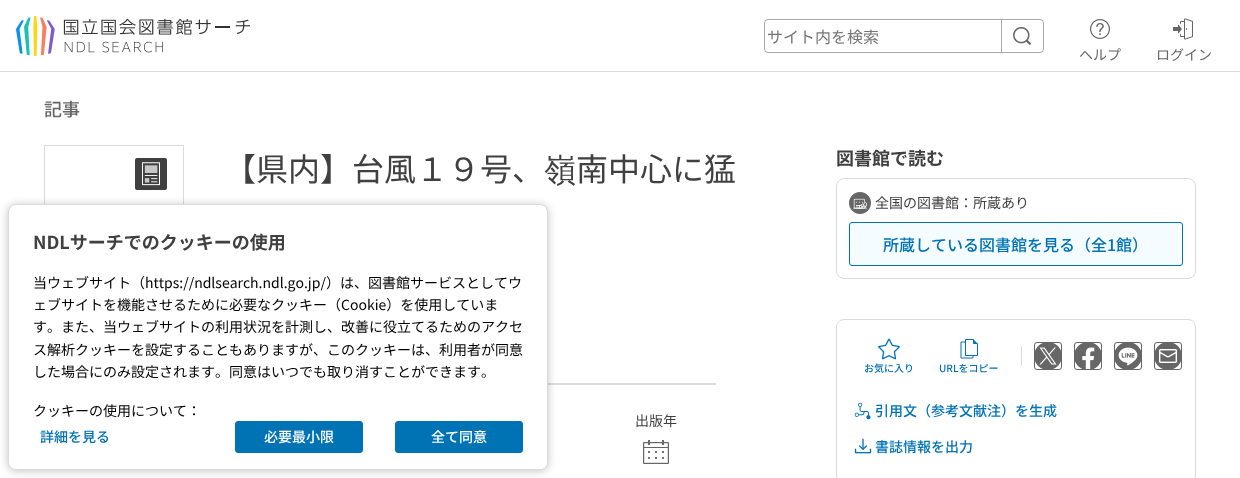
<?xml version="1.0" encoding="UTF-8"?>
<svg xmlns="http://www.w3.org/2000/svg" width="1240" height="478">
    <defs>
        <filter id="blur1" x="-50%" y="-200%" width="200%" height="500%"><feGaussianBlur stdDeviation="4"/></filter>
    </defs>
    <rect width="100%" height="100%" fill="#FFFFFF"/>
    <rect x="0" y="71" width="1240" height="1" fill="#DBDBDB"/>
    <image x="16" y="16" width="234" height="40" href="img_01.png"/>
    <rect x="764.5" y="19.5" width="279" height="33" rx="3.5" fill="none" stroke="#AAAAAA"/>
    <text x="767" y="43" font-family="Noto Sans JP" font-size="16" fill="#767676">サイト内を検索</text>
    <rect x="1001" y="19" width="1" height="34" fill="#AAAAAA"/>
    <image x="1013" y="27" width="18" height="18" href="img_02.png"/>
    <image x="1090" y="19" width="20" height="20" href="img_03.png"/>
    <text x="1079" y="60" font-family="Noto Sans JP" font-size="14" fill="#666666">ヘルプ</text>
    <image x="1173" y="18" width="20" height="22" href="img_04.png"/>
    <text x="1156" y="60" font-family="Noto Sans JP" font-size="14" fill="#666666">ログイン</text>
    <text x="44" y="116" font-family="Noto Sans JP" font-size="18" font-weight="500" fill="#666666">記事</text>
    <rect x="44.5" y="145.5" width="139" height="197" fill="none" stroke="#DBDBDB"/>
    <image x="135" y="158" width="32" height="32" href="img_05.png"/>
    <text x="224" y="181" font-family="Noto Sans JP" font-size="32" fill="#404040">【県内】台風１９号、</text>
    <text x="544" y="181" font-family="WenQuanYi Zen Hei" font-size="32" font-weight="500" fill="#404040">嶺</text>
    <text x="576" y="181" font-family="Noto Sans JP" font-size="32" fill="#404040">南中心に猛</text>
    <rect x="548" y="383" width="168" height="2" fill="#DBDBDB"/>
    <text x="635" y="426" font-family="Noto Sans JP" font-size="14" fill="#404040">出版年</text>
    <image x="643" y="440" width="26" height="24" href="img_06.png"/>
    <text x="836" y="165" font-family="Noto Sans JP" font-size="18" font-weight="700" fill="#404040">図書館で読む</text>
    <rect x="836.5" y="178.5" width="359" height="100" rx="7.5" fill="none" stroke="#DBDBDB"/>
    <image x="849" y="192" width="22" height="22" href="img_07.png"/>
    <text x="875" y="208" font-family="Noto Sans JP" font-size="14" fill="#404040">全国の図書館：所蔵あり</text>
    <rect x="849.5" y="222.5" width="333" height="43" rx="2.5" fill="#F5FCFF" stroke="#0073B5"/>
    <text x="883" y="251" font-family="Noto Sans JP" font-size="16" font-weight="500" fill="#0073B5">所蔵している図書館を見る（全1館）</text>
    <rect x="836.5" y="319.5" width="359" height="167" rx="7.5" fill="none" stroke="#DBDBDB"/>
    <rect x="1021" y="346" width="1" height="20" fill="#DBDBDB"/>
    <rect x="1034.5" y="342.5" width="27" height="27" rx="2.5" fill="none" stroke="#666666"/>
    <image x="1035" y="343" width="26" height="26" href="img_08.png"/>
    <rect x="1074.5" y="342.5" width="27" height="27" rx="2.5" fill="none" stroke="#666666"/>
    <image x="1075" y="343" width="26" height="26" href="img_09.png"/>
    <rect x="1114.5" y="342.5" width="27" height="27" rx="2.5" fill="none" stroke="#666666"/>
    <image x="1115" y="343" width="26" height="26" href="img_10.png"/>
    <rect x="1154.5" y="342.5" width="27" height="27" rx="2.5" fill="none" stroke="#666666"/>
    <image x="1155" y="343" width="26" height="26" href="img_11.png"/>
    <image x="878" y="338" width="22" height="22" href="img_12.png"/>
    <text x="864" y="372" font-family="Noto Sans JP" font-size="10" font-weight="500" fill="#0073B5">お気に入り</text>
    <image x="960" y="339" width="18" height="20" href="img_13.png"/>
    <text x="939" y="372" font-family="Noto Sans JP" font-size="10" font-weight="500" fill="#0073B5">URLをコピー</text>
    <image x="854" y="402" width="17" height="18" href="img_14.png"/>
    <text x="875" y="416" font-family="Noto Sans JP" font-size="14" font-weight="500" fill="#0073B5">引用文（参考文献注）を生成</text>
    <image x="854" y="438" width="18" height="16" href="img_15.png"/>
    <text x="875" y="452" font-family="Noto Sans JP" font-size="14" font-weight="500" fill="#0073B5">書誌情報を出力</text>
    <rect x="8" y="205" width="540" height="266" rx="8" fill="#000000" fill-opacity="0.24" filter="url(#blur1)"/>
    <rect x="8.5" y="204.5" width="539" height="265" rx="7.5" fill="#FFFFFF" stroke="#DBDBDB"/>
    <text x="33" y="249" font-family="Noto Sans JP" font-size="18" font-weight="700" fill="#404040">NDLサーチでのクッキーの使用</text>
    <text font-family="Noto Sans JP" font-size="14" fill="#000000">
        <tspan x="33" y="288">当ウェブサイト（https://ndlsearch.ndl.go.jp/）は、図書館サービスとしてウ</tspan>
        <tspan x="33" y="310">ェブサイトを機能させるために必要なクッキー（Cookie）を使用していま</tspan>
        <tspan x="33" y="332">す。また、当ウェブサイトの利用状況を計測し、改善に役立てるためのアクセ</tspan>
        <tspan x="33" y="355">ス解析クッキーを設定することもありますが、このクッキーは、利用者が同意</tspan>
        <tspan x="33" y="377">した場合にのみ設定されます。同意はいつでも取り消すことができます。</tspan>
    </text>
    <path d="M 9 383 H 547 V 462 C 547 466 544 469 540 469 H 16 C 12 469 9 466 9 462 Z" fill="#FFFFFF"/>
    <text x="33" y="416" font-family="Noto Sans JP" font-size="14" fill="#000000">クッキーの使用について：</text>
    <text x="40" y="442" font-family="Noto Sans JP" font-size="14" font-weight="500" fill="#0073B5">詳細を見る</text>
    <rect x="235.5" y="421.5" width="127" height="31" rx="2.5" fill="#0073B5" stroke="#0073B5"/>
    <text x="264" y="442" font-family="Noto Sans JP" font-size="14" font-weight="500" fill="#FFFFFF">必要最小限</text>
    <rect x="395.5" y="421.5" width="127" height="31" rx="2.5" fill="#0073B5" stroke="#0073B5"/>
    <text x="431" y="442" font-family="Noto Sans JP" font-size="14" font-weight="500" fill="#FFFFFF">全て同意</text>
</svg>
